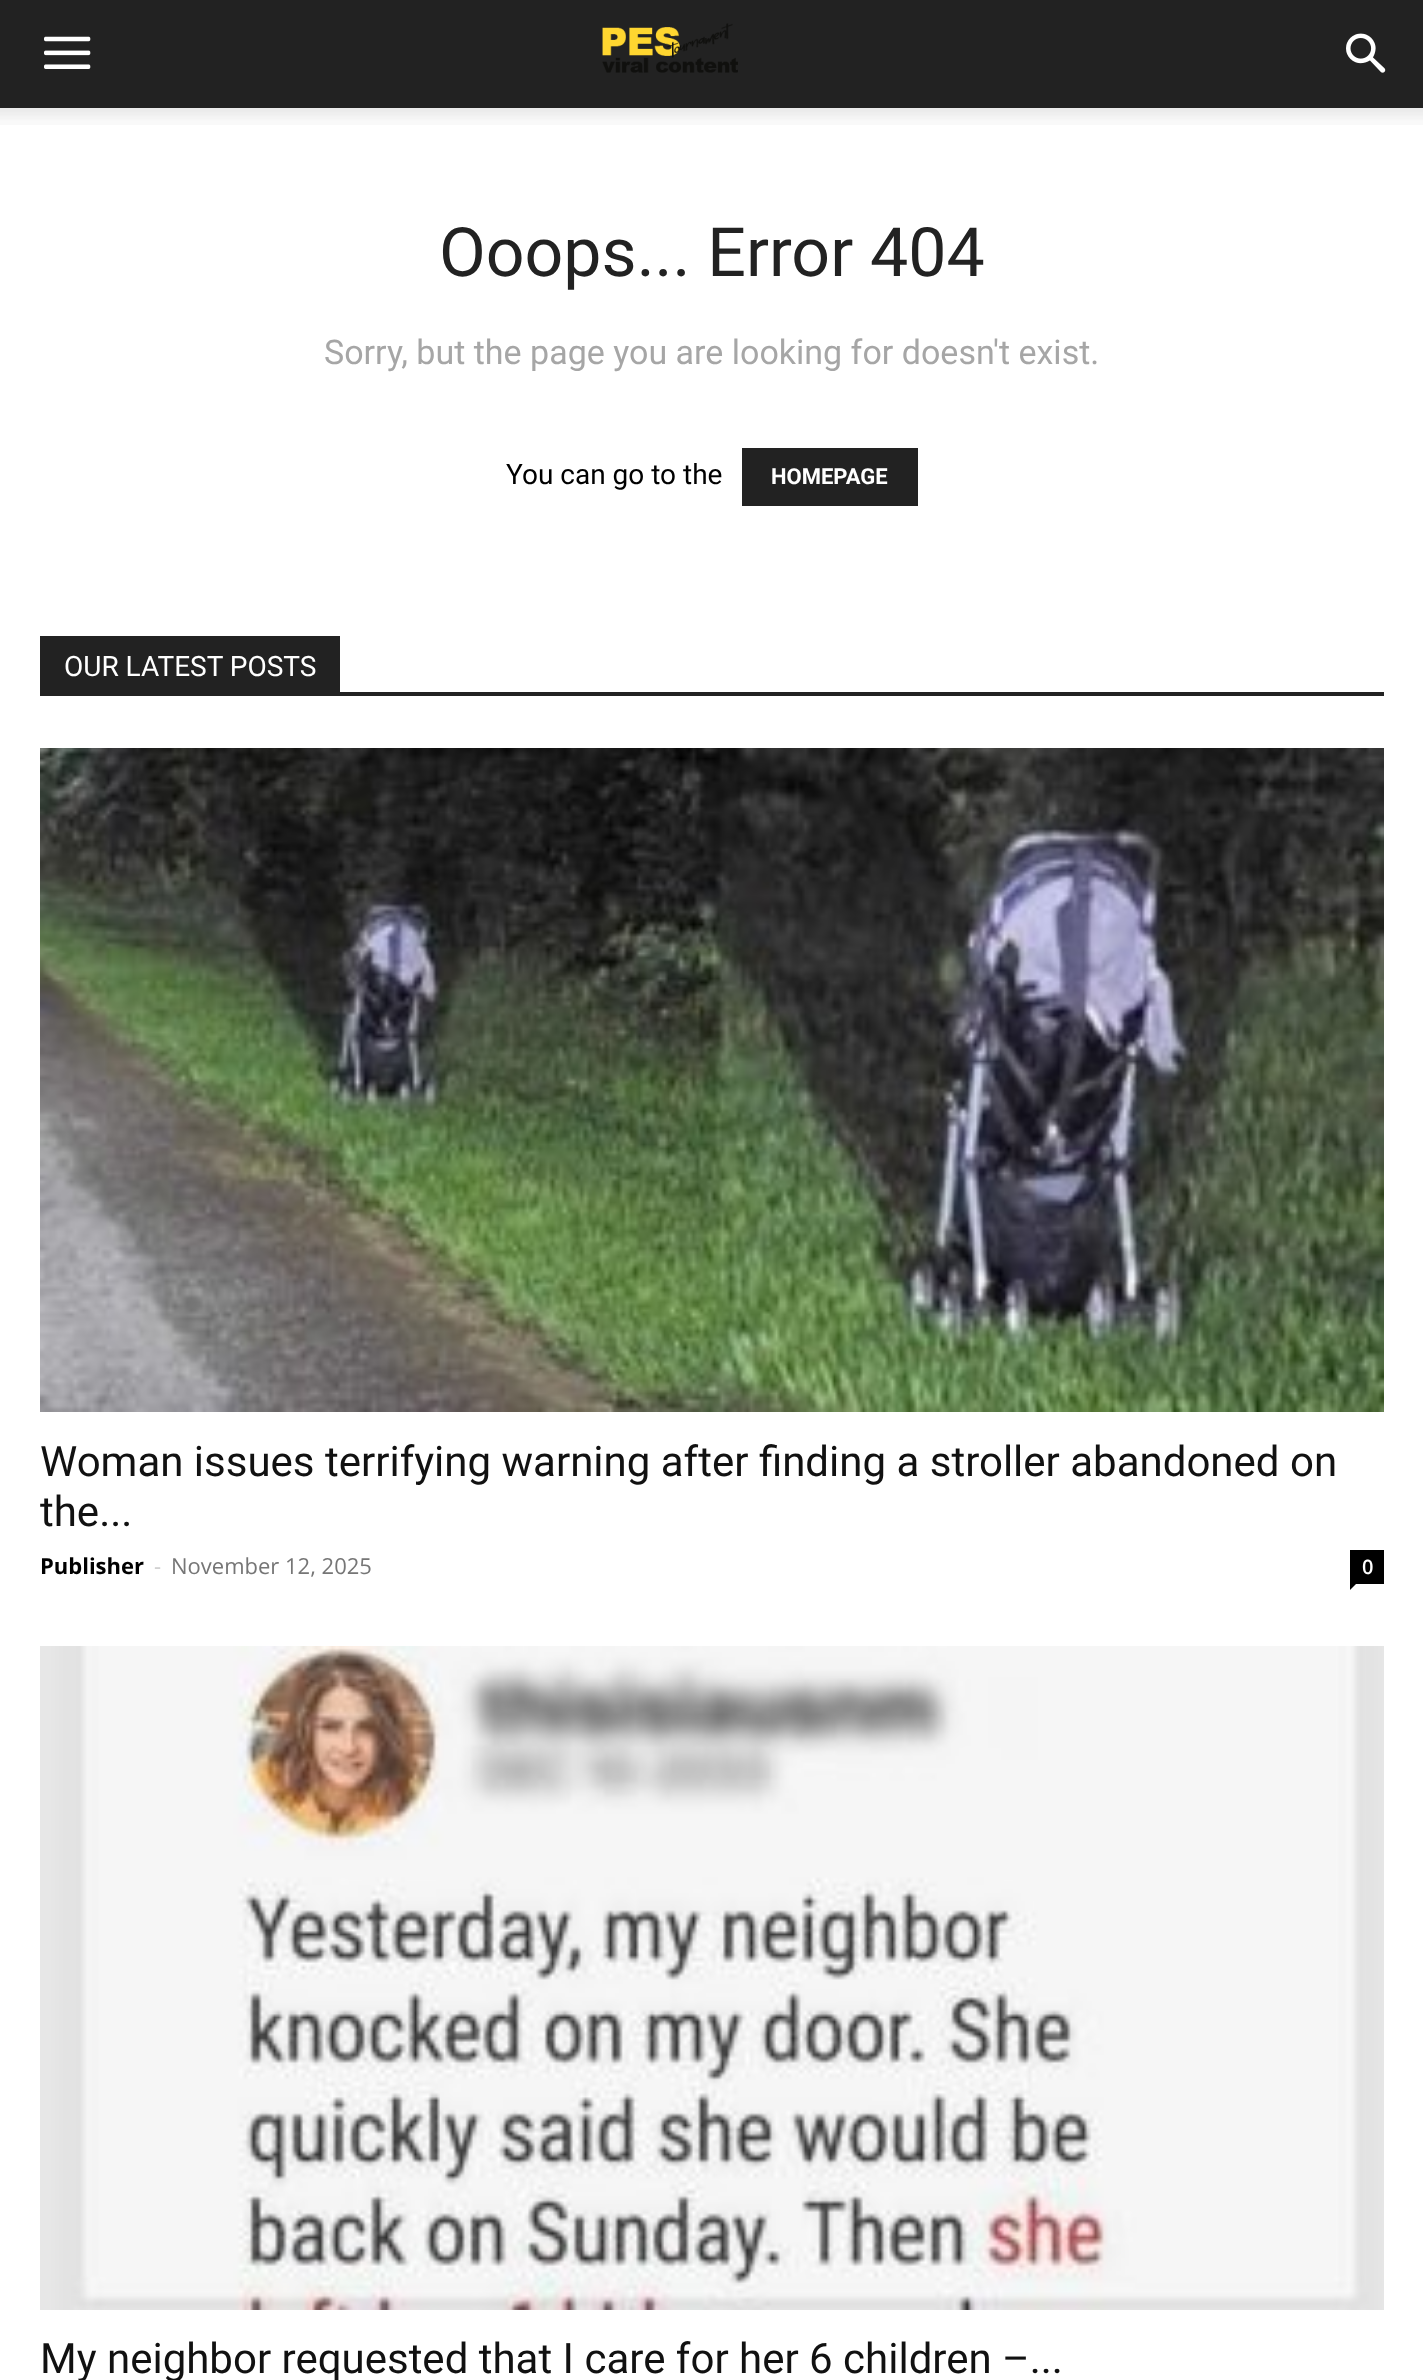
<?xml version="1.0" encoding="UTF-8"?>
<svg xmlns="http://www.w3.org/2000/svg" width="1423" height="2380">
    <rect width="100%" height="100%" fill="#FFFFFF"/>
    <rect x="0" y="0" width="1423" height="108" fill="#222222"/>
    <image x="44" y="36" width="47" height="33" href="img_01.png"/>
    <image x="602" y="23" width="136" height="50" href="img_02.png"/>
    <image x="1346" y="33" width="40" height="40" href="img_03.png"/>
    <image x="0" y="108" width="1423" height="17" href="img_04.png"/>
    <text x="439" y="276" font-family="Roboto" font-size="68" fill="#222222">Ooops... Error 404</text>
    <text x="324" y="364" font-family="Roboto" font-size="34" fill="#A6A6A6">Sorry, but the page you are looking for doesn't exist.</text>
    <text x="506" y="484" font-family="Roboto" font-size="28" fill="#000000">You can go to the</text>
    <rect x="742" y="448" width="176" height="58" fill="#222222"/>
    <text x="771" y="484" font-family="Roboto" font-size="22" font-weight="700" fill="#FFFFFF">HOMEPAGE</text>
    <rect x="40" y="692" width="1344" height="4" fill="#222222"/>
    <rect x="40" y="636" width="300" height="56" fill="#222222"/>
    <text x="64" y="676" font-family="Roboto" font-size="28" fill="#FFFFFF">OUR LATEST POSTS</text>
    <image x="40" y="748" width="1344" height="664" href="img_05.png"/>
    <text font-family="Roboto" font-size="42" fill="#111111">
        <tspan x="40" y="1476">Woman issues terrifying warning after finding a stroller abandoned on</tspan>
        <tspan x="40" y="1526">the...</tspan>
    </text>
    <text x="40" y="1574" font-family="Open Sans" font-size="22" font-weight="700" fill="#000000">Publisher</text>
    <text x="154" y="1574" font-family="Open Sans" font-size="22" fill="#CCCCCC">-</text>
    <text x="171" y="1574" font-family="Open Sans" font-size="22" fill="#767676">November 12, 2025</text>
    <rect x="1350" y="1550" width="34" height="34" fill="#000000"/>
    <text x="1362" y="1574" font-family="Open Sans" font-size="20" font-weight="600" fill="#FFFFFF">0</text>
    <path d="M 1350 1584 H 1356 L 1350 1590 Z" fill="#000000"/>
    <image x="40" y="1646" width="1344" height="664" href="img_06.png"/>
    <text x="40" y="2373" font-family="Roboto" font-size="42" fill="#111111">My neighbor requested that I care for her 6 children –...</text>
</svg>
